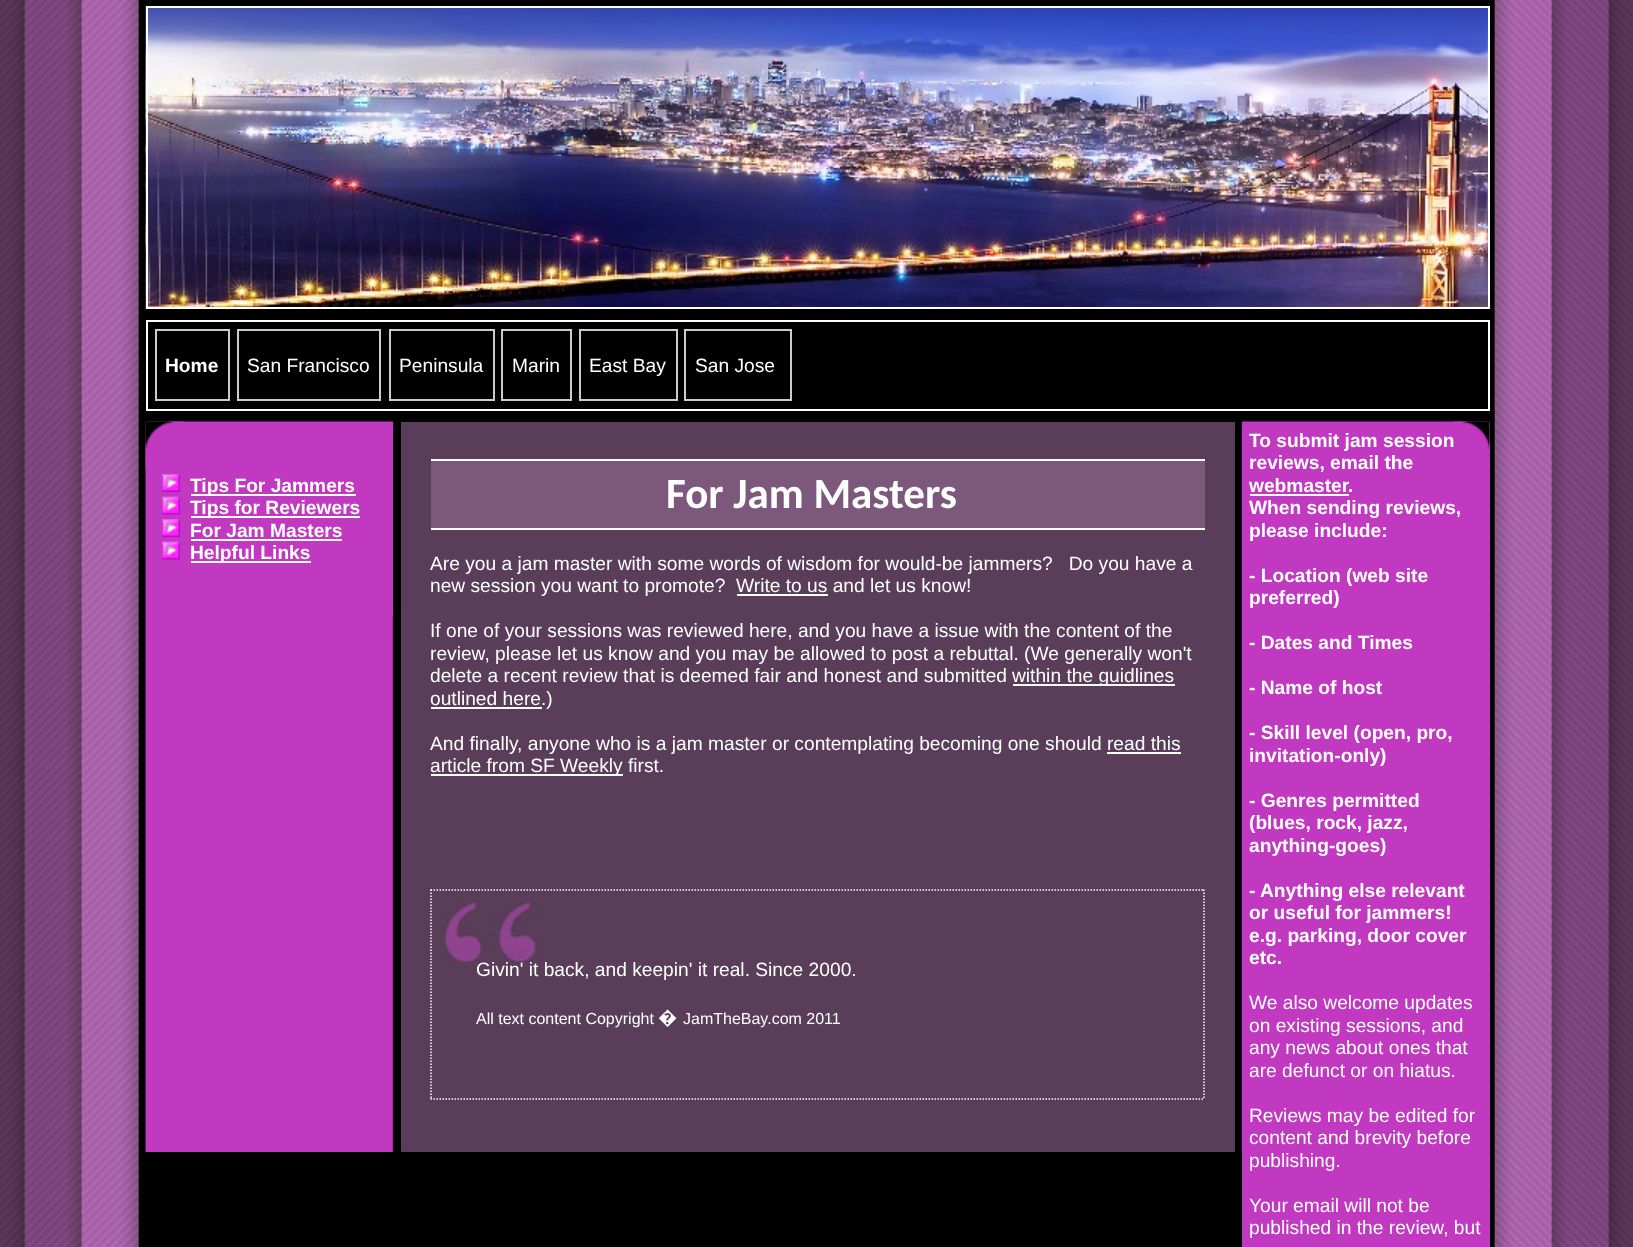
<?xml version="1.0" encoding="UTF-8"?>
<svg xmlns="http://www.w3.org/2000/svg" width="1633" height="1247">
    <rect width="100%" height="100%" fill="#FFFFFF"/>
    <image x="0" y="0" width="1633" height="1247" href="img_01.png"/>
    <rect x="1486" y="0" width="7" height="1247" fill="#000000"/>
    <image x="145" y="6" width="1343" height="303" href="img_02.png"/>
    <rect x="147" y="7" width="1342" height="301" fill="none" stroke="#FFFFFF" stroke-width="2"/>
    <rect x="147" y="321" width="1342" height="89" fill="none" stroke="#FFFFFF" stroke-width="2"/>
    <rect x="156" y="330" width="73" height="70" fill="none" stroke="#CCCCCC" stroke-width="2"/>
    <text x="165" y="372" font-family="Liberation Sans" font-size="19.2" font-weight="700" fill="#FFFFFF">Home</text>
    <rect x="238" y="330" width="142" height="70" fill="none" stroke="#CCCCCC" stroke-width="2"/>
    <text x="247" y="372" font-family="Liberation Sans" font-size="19.2" fill="#FFFFFF">San Francisco</text>
    <rect x="390" y="330" width="104" height="70" fill="none" stroke="#CCCCCC" stroke-width="2"/>
    <text x="399" y="372" font-family="Liberation Sans" font-size="19.2" fill="#FFFFFF">Peninsula</text>
    <rect x="502" y="330" width="69" height="70" fill="none" stroke="#CCCCCC" stroke-width="2"/>
    <text x="512" y="372" font-family="Liberation Sans" font-size="19.2" fill="#FFFFFF">Marin</text>
    <rect x="580" y="330" width="97" height="70" fill="none" stroke="#CCCCCC" stroke-width="2"/>
    <text x="589" y="372" font-family="Liberation Sans" font-size="19.2" fill="#FFFFFF">East Bay</text>
    <rect x="685" y="330" width="106" height="70" fill="none" stroke="#CCCCCC" stroke-width="2"/>
    <text x="695" y="372" font-family="Liberation Sans" font-size="19.2" fill="#FFFFFF">San Jose</text>
    <image x="145" y="421" width="1345" height="731" href="img_03.png"/>
    <rect x="392" y="422" width="1" height="195" fill="#C138C1"/>
    <image x="145" y="421" width="38" height="47" href="img_04.png"/>
    <image x="162" y="474" width="18" height="18" href="img_05.png"/>
    <rect x="191" y="494" width="165" height="2" fill="#FFFFFF"/>
    <text x="190" y="492" font-family="Liberation Sans" font-size="19.2" font-weight="700" fill="#FFFFFF">Tips For Jammers</text>
    <image x="162" y="496" width="18" height="19" href="img_06.png"/>
    <rect x="191" y="516" width="169" height="2" fill="#FFFFFF"/>
    <text x="190" y="514" font-family="Liberation Sans" font-size="19.2" font-weight="700" fill="#FFFFFF">Tips for Reviewers</text>
    <image x="162" y="519" width="18" height="18" href="img_05.png"/>
    <text x="190" y="537" font-family="Liberation Sans" font-size="19.2" font-weight="700" fill="#FFFFFF">For Jam Masters</text>
    <rect x="191" y="539" width="151" height="2" fill="#FFFFFF"/>
    <image x="162" y="541" width="18" height="19" href="img_06.png"/>
    <rect x="191" y="561" width="120" height="2" fill="#FFFFFF"/>
    <text x="190" y="559" font-family="Liberation Sans" font-size="19.2" font-weight="700" fill="#FFFFFF">Helpful Links</text>
    <rect x="401" y="422" width="834" height="730" fill="#5A3D59"/>
    <rect x="431" y="461" width="774" height="67" fill="#7C597C"/>
    <rect x="431" y="459" width="774" height="2" fill="#FFFFFF"/>
    <rect x="431" y="528" width="774" height="2" fill="#FFFFFF"/>
    <text x="666" y="508" font-family="Carlito" font-size="43" font-weight="700" fill="#FFFFFF">For Jam Masters</text>
    <text font-family="Liberation Sans" font-size="19.2" fill="#FFFFFF" xml:space="preserve"><tspan x="430" y="570">Are you a jam master with some words of wisdom for would-be jammers?   Do you have a</tspan><tspan x="430" y="592">new session you want to promote?</tspan></text>
    <text x="736" y="592" font-family="Liberation Sans" font-size="19.2" fill="#FFFFFF">Write to us and let us know!</text>
    <rect x="737" y="594" width="91" height="2" fill="#FFFFFF"/>
    <text font-family="Liberation Sans" font-size="19.2" fill="#FFFFFF">
        <tspan x="430" y="637">If one of your sessions was reviewed here, and you have a issue with the content of the</tspan>
        <tspan x="430" y="660">review, please let us know and you may be allowed to post a rebuttal. (We generally won't</tspan>
        <tspan x="430" y="682">delete a recent review that is deemed fair and honest and submitted</tspan>
    </text>
    <rect x="1013" y="684" width="162" height="2" fill="#FFFFFF"/>
    <text x="1012" y="682" font-family="Liberation Sans" font-size="19.2" fill="#FFFFFF">within the guidlines</text>
    <rect x="431" y="707" width="111" height="2" fill="#FFFFFF"/>
    <text x="430" y="705" font-family="Liberation Sans" font-size="19.2" fill="#FFFFFF">outlined here.)</text>
    <text x="430" y="750" font-family="Liberation Sans" font-size="19.2" fill="#FFFFFF">And finally, anyone who is a jam master or contemplating becoming one should read this</text>
    <rect x="431" y="774" width="192" height="2" fill="#FFFFFF"/>
    <text x="430" y="772" font-family="Liberation Sans" font-size="19.2" fill="#FFFFFF">article from SF Weekly first.</text>
    <rect x="1107" y="752" width="74" height="2" fill="#FFFFFF"/>
    <image x="444" y="902" width="96" height="61" href="img_07.png"/>
    <path d="M 430.5 890 H 1204.5" fill="none" stroke="#FFFFFF" stroke-width="1.5" stroke-dasharray="1.5 1.5"/>
    <path d="M 1204 889.5 V 1099.5" fill="none" stroke="#FFFFFF" stroke-width="1.5" stroke-dasharray="1.5 1.5"/>
    <path d="M 430.5 1099 H 1204.5" fill="none" stroke="#FFFFFF" stroke-width="1.5" stroke-dasharray="1.5 1.5"/>
    <path d="M 431 889.5 V 1099.5" fill="none" stroke="#FFFFFF" stroke-width="1.5" stroke-dasharray="1.5 1.5"/>
    <text x="476" y="976" font-family="Liberation Sans" font-size="19.2" fill="#FFFFFF">Givin' it back, and keepin' it real. Since 2000.</text>
    <text x="476" y="1024" font-family="Liberation Sans" font-size="16" fill="#FFFFFF">All text content Copyright</text>
    <text x="658" y="1024" font-family="Noto Sans" font-size="19.2" fill="#FFFFFF">�</text>
    <text x="683" y="1024" font-family="Liberation Sans" font-size="16" fill="#FFFFFF">JamTheBay.com 2011</text>
    <rect x="1242" y="422" width="248" height="825" fill="#C138C1"/>
    <image x="1453" y="421" width="37" height="29" href="img_08.png"/>
    <text font-family="Liberation Sans" font-size="19.2" font-weight="700" fill="#FFFFFF">
        <tspan x="1249" y="447">To submit jam session</tspan>
        <tspan x="1249" y="469">reviews, email the</tspan>
        <tspan x="1249" y="492">webmaster</tspan>
    </text>
    <rect x="1250" y="494" width="99" height="2" fill="#FFFFFF"/>
    <text x="1348" y="492" font-family="Liberation Sans" font-size="19.2" font-weight="700" fill="#FFFFFF">.</text>
    <text font-family="Liberation Sans" font-size="19.2" font-weight="700" fill="#FFFFFF">
        <tspan x="1249" y="514">When sending reviews,</tspan>
        <tspan x="1249" y="537">please include:</tspan>
    </text>
    <text font-family="Liberation Sans" font-size="19.2" font-weight="700" fill="#FFFFFF">
        <tspan x="1249" y="582">- Location (web site</tspan>
        <tspan x="1249" y="604">preferred)</tspan>
    </text>
    <text x="1249" y="649" font-family="Liberation Sans" font-size="19.2" font-weight="700" fill="#FFFFFF">- Dates and Times</text>
    <text x="1249" y="694" font-family="Liberation Sans" font-size="19.2" font-weight="700" fill="#FFFFFF">- Name of host</text>
    <text font-family="Liberation Sans" font-size="19.2" font-weight="700" fill="#FFFFFF">
        <tspan x="1249" y="739">- Skill level (open, pro,</tspan>
        <tspan x="1249" y="762">invitation-only)</tspan>
    </text>
    <text font-family="Liberation Sans" font-size="19.2" font-weight="700" fill="#FFFFFF">
        <tspan x="1249" y="807">- Genres permitted</tspan>
        <tspan x="1249" y="829">(blues, rock, jazz,</tspan>
        <tspan x="1249" y="852">anything-goes)</tspan>
    </text>
    <text font-family="Liberation Sans" font-size="19.2" font-weight="700" fill="#FFFFFF">
        <tspan x="1249" y="897">- Anything else relevant</tspan>
        <tspan x="1249" y="919">or useful for jammers!</tspan>
        <tspan x="1249" y="942">e.g. parking, door cover</tspan>
        <tspan x="1249" y="964">etc.</tspan>
    </text>
    <text font-family="Liberation Sans" font-size="19.2" fill="#FFFFFF">
        <tspan x="1249" y="1009">We also welcome updates</tspan>
        <tspan x="1249" y="1032">on existing sessions, and</tspan>
        <tspan x="1249" y="1054">any news about ones that</tspan>
        <tspan x="1249" y="1077">are defunct or on hiatus.</tspan>
    </text>
    <text font-family="Liberation Sans" font-size="19.2" fill="#FFFFFF">
        <tspan x="1249" y="1122">Reviews may be edited for</tspan>
        <tspan x="1249" y="1144">content and brevity before</tspan>
        <tspan x="1249" y="1167">publishing.</tspan>
    </text>
    <text font-family="Liberation Sans" font-size="19.2" fill="#FFFFFF">
        <tspan x="1249" y="1212">Your email will not be</tspan>
        <tspan x="1249" y="1234">published in the review, but</tspan>
    </text>
</svg>
